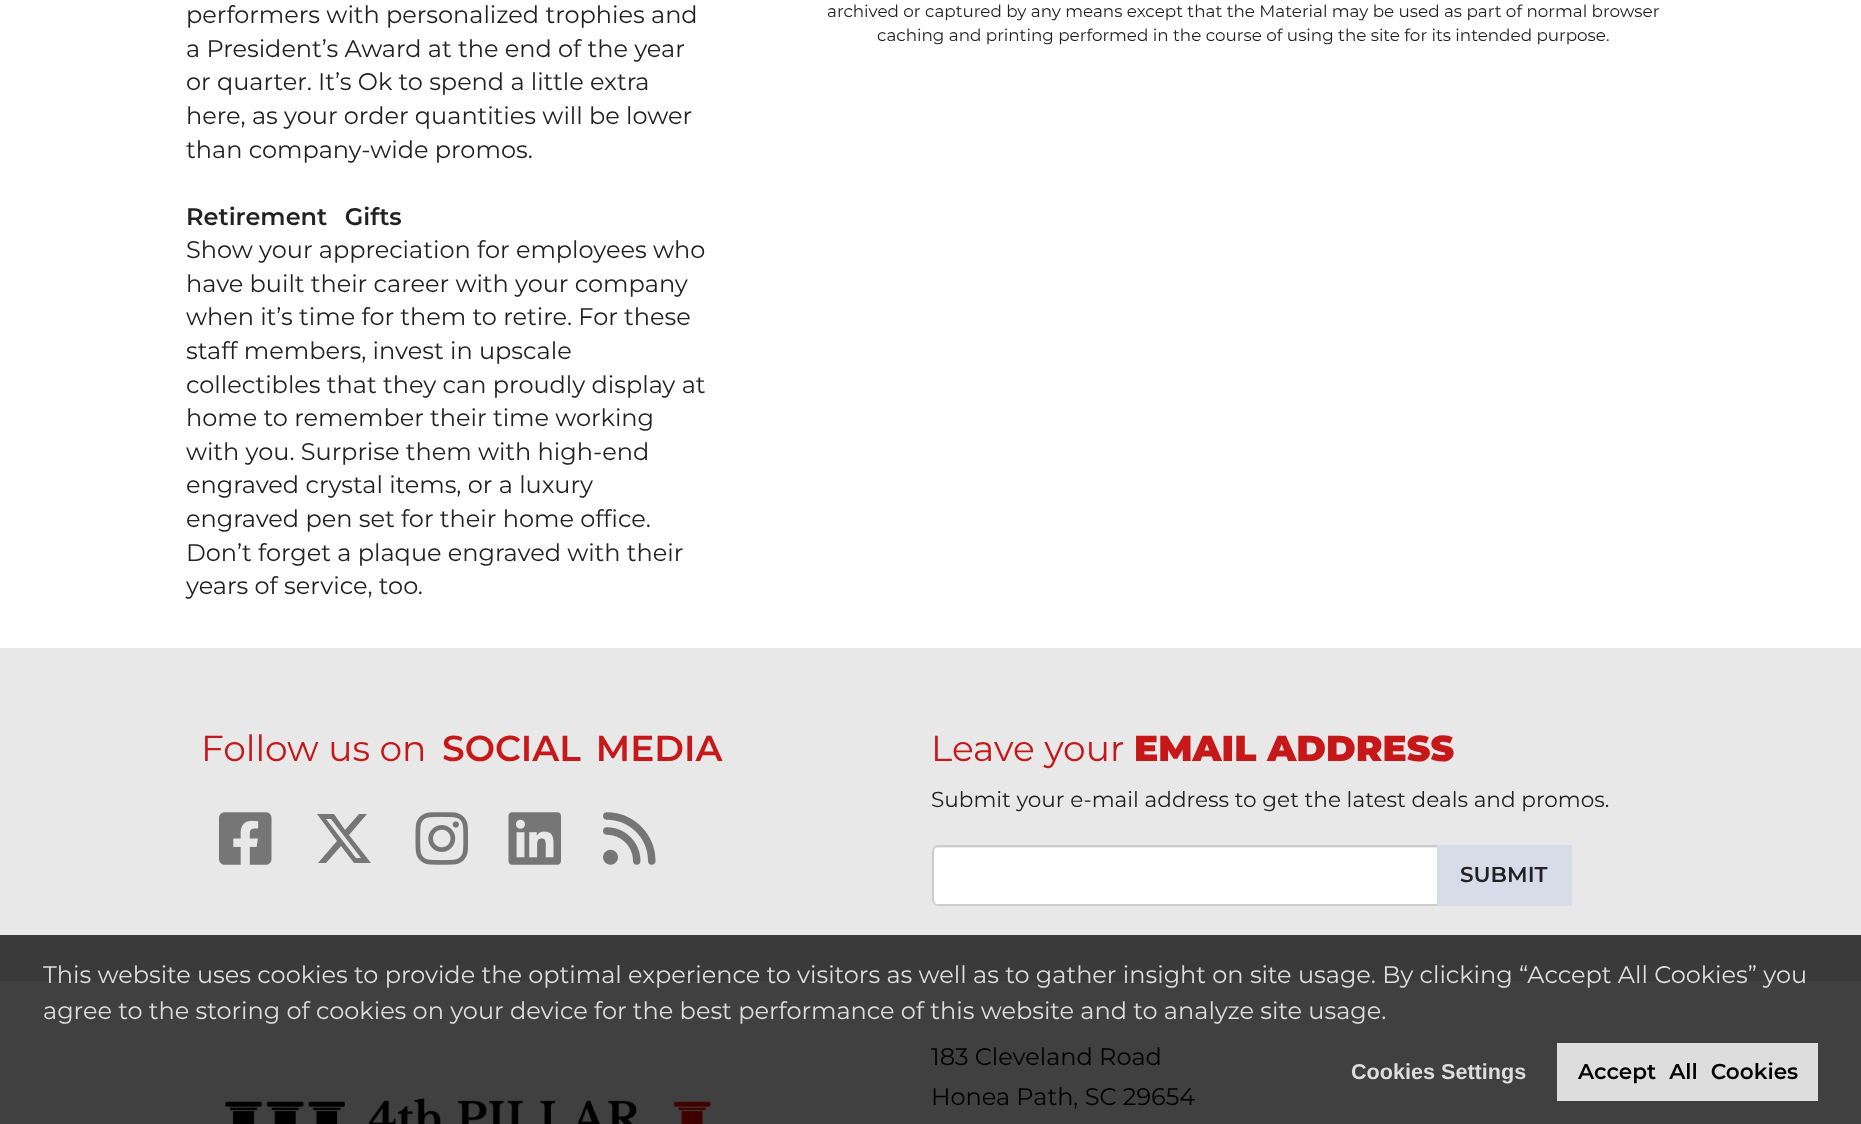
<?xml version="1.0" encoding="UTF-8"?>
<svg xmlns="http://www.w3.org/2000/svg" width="1861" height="1124">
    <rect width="100%" height="100%" fill="#FFFFFF"/>
    <rect x="0" y="981" width="1861" height="143" fill="#404040"/>
    <text font-family="Montserrat" font-size="24" fill="#222222">
        <tspan x="186" y="23">performers with personalized trophies and</tspan>
        <tspan x="186" y="57">a President’s Award at the end of the year</tspan>
        <tspan x="186" y="90">or quarter. It’s Ok to spend a little extra</tspan>
        <tspan x="186" y="124">here, as your order quantities will be lower</tspan>
        <tspan x="186" y="158">than company-wide promos.</tspan>
    </text>
    <text x="186" y="225" word-spacing="11" font-family="Montserrat" font-size="24" font-weight="600" fill="#222222">Retirement Gifts</text>
    <text font-family="Montserrat" font-size="24" fill="#222222">
        <tspan x="186" y="258">Show your appreciation for employees who</tspan>
        <tspan x="186" y="292">have built their career with your company</tspan>
        <tspan x="186" y="325">when it’s time for them to retire. For these</tspan>
        <tspan x="186" y="359">staff members, invest in upscale</tspan>
        <tspan x="186" y="393">collectibles that they can proudly display at</tspan>
        <tspan x="186" y="426">home to remember their time working</tspan>
        <tspan x="186" y="460">with you. Surprise them with high-end</tspan>
        <tspan x="186" y="493">engraved crystal items, or a luxury</tspan>
        <tspan x="186" y="527">engraved pen set for their home office.</tspan>
        <tspan x="186" y="561">Don’t forget a plaque engraved with their</tspan>
        <tspan x="186" y="594">years of service, too.</tspan>
    </text>
    <text x="827" y="17" font-family="Montserrat" font-size="16.8" fill="#222222">archived or captured by any means except that the Material may be used as part of normal browser</text>
    <text x="877" y="41" font-family="Montserrat" font-size="16.8" fill="#222222">caching and printing performed in the course of using the site for its intended purpose.</text>
    <rect x="0" y="648" width="1861" height="287" fill="#E8E8E8"/>
    <rect x="0" y="935" width="1861" height="46" fill="#3A3A3A"/>
    <text x="201" y="761" font-family="Montserrat" font-size="36" fill="#C61719">Follow us on</text>
    <text x="442" y="761" word-spacing="5" font-family="Montserrat" font-size="36" font-weight="600" fill="#C61719">SOCIAL MEDIA</text>
    <image x="219" y="812" width="53" height="53" href="img_01.png"/>
    <path d="M 359 814 H 367 L 349 835 L 371 863 H 354 L 341 846 L 326 863 H 318 L 337 841 L 317 814 H 334 L 345 830 Z M 356 858 H 361 L 331 819 H 326 Z" fill="#777677"/>
    <image x="415" y="812" width="53" height="53" href="img_02.png"/>
    <image x="508" y="812" width="53" height="53" href="img_03.png"/>
    <image x="603" y="812" width="53" height="53" href="img_04.png"/>
    <text x="931" y="761" font-family="Montserrat" font-size="36" fill="#C61719">Leave your</text>
    <text x="1134" y="761" font-family="Montserrat" font-size="36" font-weight="900" fill="#C61719">EMAIL ADDRESS</text>
    <text x="931" y="807" font-family="Montserrat" font-size="21.6" fill="#222222">Submit your e-mail address to get the latest deals and promos.</text>
    <rect x="932" y="845" width="520" height="61" rx="6" fill="#FFFFFF"/>
    <path d="M 938 848 H 1446 C 1448 848 1450 850 1450 852 V 903 C 1451 902 1451 901 1451 900 V 851 C 1451 848 1449 846 1446 846 H 938 C 935 846 933 848 933 851 V 852 C 933 850 935 848 938 848 Z" fill="#ECECEC"/>
    <rect x="933" y="846" width="518" height="59" rx="5" fill="none" stroke="#CCCCCC" stroke-width="2"/>
    <rect x="1437" y="845" width="135" height="61" fill="#D6DDE9"/>
    <text x="1460" y="882" font-family="Montserrat" font-size="21.6" font-weight="600" fill="#222222">SUBMIT</text>
    <image x="224" y="1098" width="487" height="26" href="img_05.png"/>
    <text font-family="Montserrat" font-size="24" fill="#000000">
        <tspan x="931" y="1065">183 Cleveland Road</tspan>
        <tspan x="931" y="1105">Honea Path, SC 29654</tspan>
    </text>
    <text font-family="Montserrat" font-size="24" fill="#DDDDDD">
        <tspan x="43" y="983">This website uses cookies to provide the optimal experience to visitors as well as to gather insight on site usage. By clicking “Accept All Cookies” you</tspan>
        <tspan x="43" y="1019">agree to the storing of cookies on your device for the best performance of this website and to analyze site usage.</tspan>
    </text>
    <text x="1351" y="1079" font-family="Liberation Sans" font-size="21.6" font-weight="700" fill="#DDDDDD">Cookies Settings</text>
    <rect x="1557" y="1043" width="261" height="58" fill="#DDDDDD"/>
    <text x="1578" y="1079" word-spacing="7" font-family="Montserrat" font-size="21.6" font-weight="600" fill="#000000">Accept All Cookies</text>
</svg>
